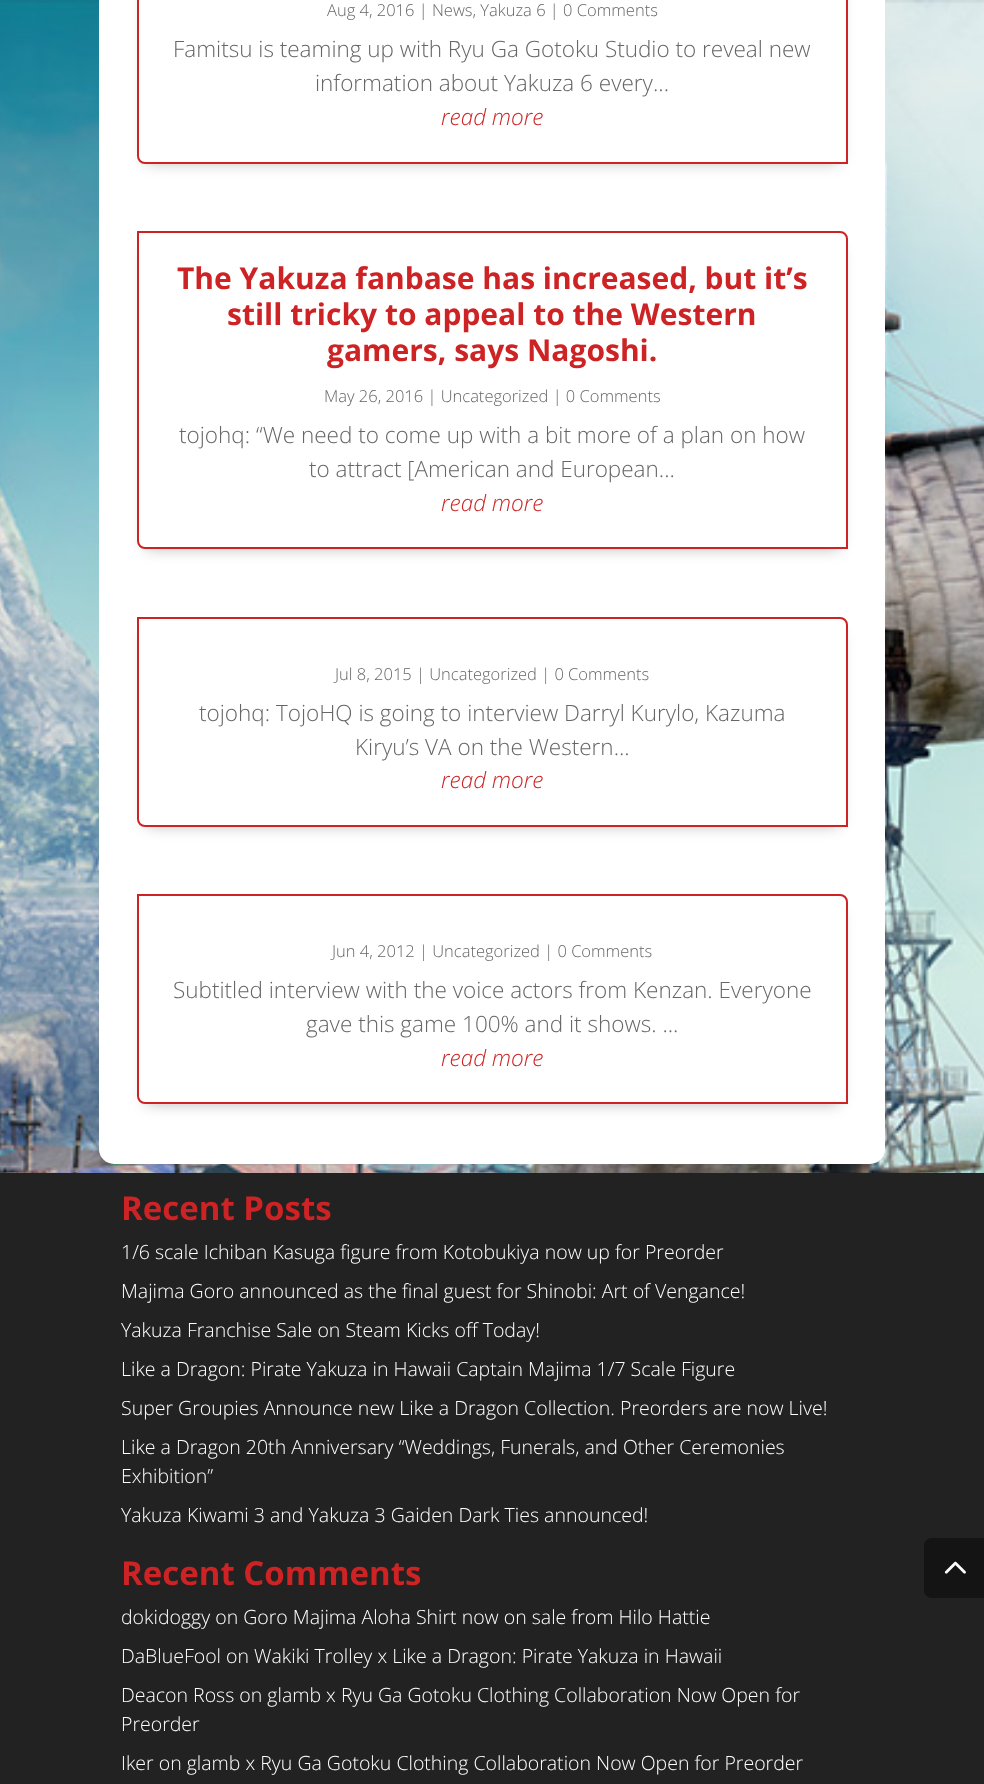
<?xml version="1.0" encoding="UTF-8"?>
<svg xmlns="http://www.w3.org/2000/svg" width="984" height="1784">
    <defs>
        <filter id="blur1" x="-50%" y="-200%" width="200%" height="500%"><feGaussianBlur stdDeviation="7.5"/></filter>
    </defs>
    <rect width="100%" height="100%" fill="#FFFFFF"/>
    <image x="0" y="0" width="984" height="1173" href="img_01.png"/>
    <rect x="99" y="-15" width="786" height="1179" rx="15" fill="#FFFFFF"/>
    <rect x="146" y="-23" width="693" height="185" fill="#000000" fill-opacity="0.3" filter="url(#blur1)"/>
    <path d="M 138 -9 H 840 C 844 -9 847 -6 847 -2 V 163 H 145 C 141 163 138 160 138 156 Z" fill="#FFFFFF" stroke="#CD2324" stroke-width="2"/>
    <text x="327" y="16" font-family="Open Sans" font-size="16.5" font-weight="300" fill="#666666">Aug 4, 2016 | News, Yakuza 6 | 0 Comments</text>
    <text x="173" y="57" font-family="Open Sans" font-size="22.5" font-weight="300" fill="#666666">Famitsu is teaming up with Ryu Ga Gotoku Studio to reveal new</text>
    <text x="315" y="91" font-family="Open Sans" font-size="22.5" font-weight="300" fill="#666666">information about Yakuza 6 every...</text>
    <text x="441" y="125" font-family="Open Sans" font-size="22.5" font-weight="300" font-style="italic" fill="#CD2324">read more</text>
    <rect x="146" y="248" width="693" height="300" fill="#000000" fill-opacity="0.3" filter="url(#blur1)"/>
    <path d="M 138 232 H 840 C 844 232 847 235 847 239 V 548 H 145 C 141 548 138 545 138 541 Z" fill="#FFFFFF" stroke="#CD2324" stroke-width="2"/>
    <text x="177" y="289" font-family="Open Sans" font-size="30" font-weight="700" fill="#CD2324">The Yakuza fanbase has increased, but it’s</text>
    <text x="227" y="325" font-family="Open Sans" font-size="30" font-weight="700" fill="#CD2324">still tricky to appeal to the Western</text>
    <text x="327" y="361" font-family="Open Sans" font-size="30" font-weight="700" fill="#CD2324">gamers, says Nagoshi.</text>
    <text x="324" y="402" font-family="Open Sans" font-size="16.5" font-weight="300" fill="#666666">May 26, 2016 | Uncategorized | 0 Comments</text>
    <text x="179" y="443" font-family="Open Sans" font-size="22.5" font-weight="300" fill="#666666">tojohq: “We need to come up with a bit more of a plan on how</text>
    <text x="309" y="477" font-family="Open Sans" font-size="22.5" font-weight="300" fill="#666666">to attract [American and European...</text>
    <text x="441" y="511" font-family="Open Sans" font-size="22.5" font-weight="300" font-style="italic" fill="#CD2324">read more</text>
    <rect x="146" y="633" width="693" height="192" fill="#000000" fill-opacity="0.3" filter="url(#blur1)"/>
    <path d="M 138 618 H 840 C 844 618 847 621 847 625 V 826 H 145 C 141 826 138 823 138 819 Z" fill="#FFFFFF" stroke="#CD2324" stroke-width="2"/>
    <text x="335" y="680" font-family="Open Sans" font-size="16.5" font-weight="300" fill="#666666">Jul 8, 2015 | Uncategorized | 0 Comments</text>
    <text x="199" y="721" font-family="Open Sans" font-size="22.5" font-weight="300" fill="#666666">tojohq: TojoHQ is going to interview Darryl Kurylo, Kazuma</text>
    <text x="355" y="755" font-family="Open Sans" font-size="22.5" font-weight="300" fill="#666666">Kiryu’s VA on the Western...</text>
    <text x="441" y="788" font-family="Open Sans" font-size="22.5" font-weight="300" font-style="italic" fill="#CD2324">read more</text>
    <rect x="146" y="911" width="693" height="192" fill="#000000" fill-opacity="0.3" filter="url(#blur1)"/>
    <path d="M 138 895 H 840 C 844 895 847 898 847 902 V 1103 H 145 C 141 1103 138 1100 138 1096 Z" fill="#FFFFFF" stroke="#CD2324" stroke-width="2"/>
    <text x="332" y="957" font-family="Open Sans" font-size="16.5" font-weight="300" fill="#666666">Jun 4, 2012 | Uncategorized | 0 Comments</text>
    <text x="173" y="998" font-family="Open Sans" font-size="22.5" font-weight="300" fill="#666666">Subtitled interview with the voice actors from Kenzan. Everyone</text>
    <text x="306" y="1032" font-family="Open Sans" font-size="22.5" font-weight="300" fill="#666666">gave this game 100% and it shows. ...</text>
    <text x="441" y="1066" font-family="Open Sans" font-size="22.5" font-weight="300" font-style="italic" fill="#CD2324">read more</text>
    <rect x="0" y="1173" width="984" height="611" fill="#222222"/>
    <text x="121" y="1220" font-family="Open Sans" font-size="33" font-weight="700" fill="#CD2324">Recent Posts</text>
    <text x="121" y="1259" font-family="Open Sans" font-size="19.5" font-weight="300" fill="#FFFFFF">1/6 scale Ichiban Kasuga figure from Kotobukiya now up for Preorder</text>
    <text x="121" y="1298" font-family="Open Sans" font-size="19.5" font-weight="300" fill="#FFFFFF">Majima Goro announced as the final guest for Shinobi: Art of Vengance!</text>
    <text x="121" y="1337" font-family="Open Sans" font-size="19.5" font-weight="300" fill="#FFFFFF">Yakuza Franchise Sale on Steam Kicks off Today!</text>
    <text x="121" y="1376" font-family="Open Sans" font-size="19.5" font-weight="300" fill="#FFFFFF">Like a Dragon: Pirate Yakuza in Hawaii Captain Majima 1/7 Scale Figure</text>
    <text x="121" y="1415" font-family="Open Sans" font-size="19.5" font-weight="300" fill="#FFFFFF">Super Groupies Announce new Like a Dragon Collection. Preorders are now Live!</text>
    <text font-family="Open Sans" font-size="19.5" font-weight="300" fill="#FFFFFF">
        <tspan x="121" y="1454">Like a Dragon 20th Anniversary “Weddings, Funerals, and Other Ceremonies</tspan>
        <tspan x="121" y="1483">Exhibition”</tspan>
    </text>
    <text x="121" y="1522" font-family="Open Sans" font-size="19.5" font-weight="300" fill="#FFFFFF">Yakuza Kiwami 3 and Yakuza 3 Gaiden Dark Ties announced!</text>
    <text x="121" y="1585" font-family="Open Sans" font-size="33" font-weight="700" fill="#CD2324">Recent Comments</text>
    <text x="121" y="1624" font-family="Open Sans" font-size="19.5" font-weight="300" fill="#FFFFFF">dokidoggy on Goro Majima Aloha Shirt now on sale from Hilo Hattie</text>
    <text x="121" y="1663" font-family="Open Sans" font-size="19.5" font-weight="300" fill="#FFFFFF">DaBlueFool on Wakiki Trolley x Like a Dragon: Pirate Yakuza in Hawaii</text>
    <text font-family="Open Sans" font-size="19.5" font-weight="300" fill="#FFFFFF">
        <tspan x="121" y="1702">Deacon Ross on glamb x Ryu Ga Gotoku Clothing Collaboration Now Open for</tspan>
        <tspan x="121" y="1731">Preorder</tspan>
    </text>
    <text x="121" y="1770" font-family="Open Sans" font-size="19.5" font-weight="300" fill="#FFFFFF">Iker on glamb x Ryu Ga Gotoku Clothing Collaboration Now Open for Preorder</text>
    <path d="M 932 1538 H 984 V 1598 H 932 C 927.5 1598 924 1594.5 924 1590 V 1546 C 924 1541.5 927.5 1538 932 1538 Z" fill="#141414"/>
    <image x="944" y="1561" width="22" height="13" href="img_02.png"/>
</svg>
